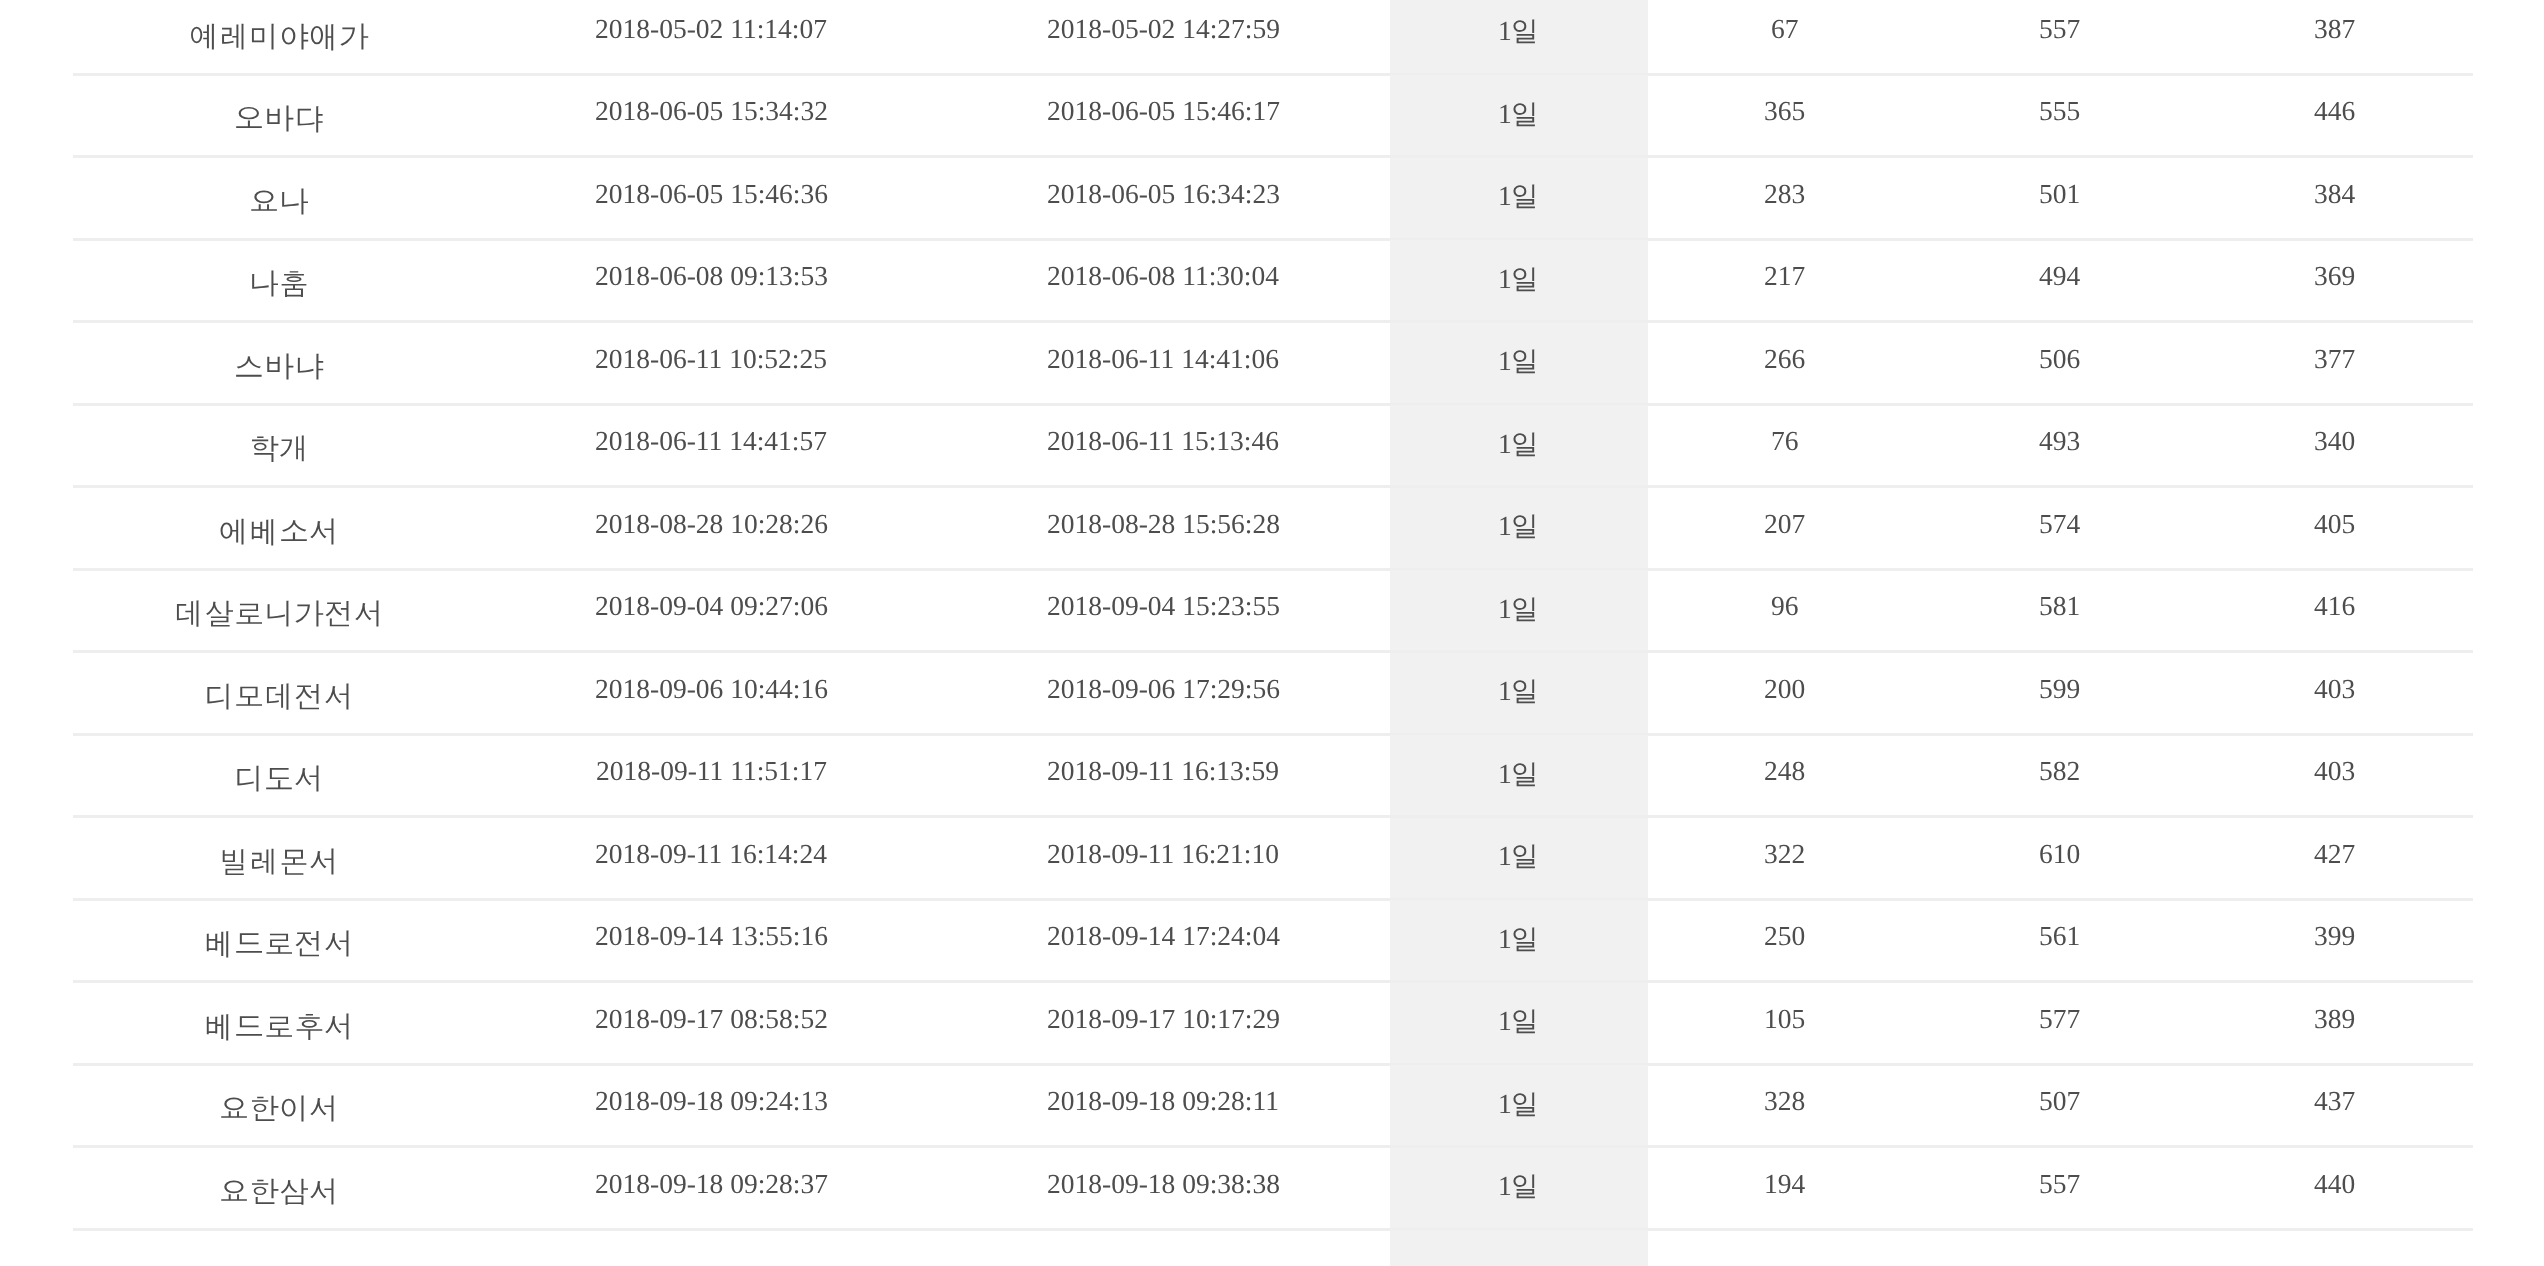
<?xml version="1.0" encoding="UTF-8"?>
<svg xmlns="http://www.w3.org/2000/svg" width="2544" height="1266">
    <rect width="100%" height="100%" fill="#FFFFFF"/>
    <rect x="73" y="73" width="1317" height="3" fill="#EEEEEE"/>
    <text x="189" y="48" font-family="Dotum" font-size="30" fill="#4D4D4D">예레미야애가</text>
    <text x="595" y="38" font-family="Liberation Serif" font-size="27.5" fill="#4D4D4D">2018-05-02 11:14:07</text>
    <text x="1047" y="38" font-family="Liberation Serif" font-size="27.5" fill="#4D4D4D">2018-05-02 14:27:59</text>
    <rect x="1390" y="0" width="258" height="73" fill="#F1F1F1"/>
    <rect x="1390" y="73" width="258" height="2" fill="#EEEEEE"/>
    <text x="1498" y="40" font-family="Liberation Serif" font-size="27.5" fill="#4D4D4D">1</text>
    <text x="1511" y="40" font-family="WenQuanYi Zen Hei" font-size="27.5" font-weight="500" fill="#4D4D4D">일</text>
    <rect x="1648" y="73" width="825" height="3" fill="#EEEEEE"/>
    <text x="1771" y="38" font-family="Liberation Serif" font-size="27.5" fill="#4D4D4D">67</text>
    <text x="2039" y="38" font-family="Liberation Serif" font-size="27.5" fill="#4D4D4D">557</text>
    <text x="2314" y="38" font-family="Liberation Serif" font-size="27.5" fill="#4D4D4D">387</text>
    <rect x="73" y="155" width="2400" height="3" fill="#EEEEEE"/>
    <text x="234" y="130" font-family="Dotum" font-size="30" fill="#4D4D4D">오바댜</text>
    <text x="595" y="120" font-family="Liberation Serif" font-size="27.5" fill="#4D4D4D">2018-06-05 15:34:32</text>
    <text x="1047" y="120" font-family="Liberation Serif" font-size="27.5" fill="#4D4D4D">2018-06-05 15:46:17</text>
    <rect x="1390" y="75" width="258" height="80" fill="#F1F1F1"/>
    <text x="1498" y="123" font-family="Liberation Serif" font-size="27.5" fill="#4D4D4D">1</text>
    <text x="1511" y="123" font-family="WenQuanYi Zen Hei" font-size="27.5" font-weight="500" fill="#4D4D4D">일</text>
    <text x="1764" y="120" font-family="Liberation Serif" font-size="27.5" fill="#4D4D4D">365</text>
    <text x="2039" y="120" font-family="Liberation Serif" font-size="27.5" fill="#4D4D4D">555</text>
    <text x="2314" y="120" font-family="Liberation Serif" font-size="27.5" fill="#4D4D4D">446</text>
    <rect x="73" y="238" width="1317" height="3" fill="#EEEEEE"/>
    <text x="249" y="213" font-family="Dotum" font-size="30" fill="#4D4D4D">요나</text>
    <text x="595" y="203" font-family="Liberation Serif" font-size="27.5" fill="#4D4D4D">2018-06-05 15:46:36</text>
    <text x="1047" y="203" font-family="Liberation Serif" font-size="27.5" fill="#4D4D4D">2018-06-05 16:34:23</text>
    <rect x="1390" y="158" width="258" height="80" fill="#F1F1F1"/>
    <rect x="1390" y="238" width="258" height="2" fill="#EEEEEE"/>
    <text x="1498" y="205" font-family="Liberation Serif" font-size="27.5" fill="#4D4D4D">1</text>
    <text x="1511" y="205" font-family="WenQuanYi Zen Hei" font-size="27.5" font-weight="500" fill="#4D4D4D">일</text>
    <rect x="1648" y="238" width="825" height="3" fill="#EEEEEE"/>
    <text x="1764" y="203" font-family="Liberation Serif" font-size="27.5" fill="#4D4D4D">283</text>
    <text x="2039" y="203" font-family="Liberation Serif" font-size="27.5" fill="#4D4D4D">501</text>
    <text x="2314" y="203" font-family="Liberation Serif" font-size="27.5" fill="#4D4D4D">384</text>
    <rect x="73" y="320" width="2400" height="3" fill="#EEEEEE"/>
    <text x="249" y="295" font-family="Dotum" font-size="30" fill="#4D4D4D">나훔</text>
    <text x="595" y="285" font-family="Liberation Serif" font-size="27.5" fill="#4D4D4D">2018-06-08 09:13:53</text>
    <text x="1047" y="285" font-family="Liberation Serif" font-size="27.5" fill="#4D4D4D">2018-06-08 11:30:04</text>
    <rect x="1390" y="240" width="258" height="80" fill="#F1F1F1"/>
    <text x="1498" y="288" font-family="Liberation Serif" font-size="27.5" fill="#4D4D4D">1</text>
    <text x="1511" y="288" font-family="WenQuanYi Zen Hei" font-size="27.5" font-weight="500" fill="#4D4D4D">일</text>
    <text x="1764" y="285" font-family="Liberation Serif" font-size="27.5" fill="#4D4D4D">217</text>
    <text x="2039" y="285" font-family="Liberation Serif" font-size="27.5" fill="#4D4D4D">494</text>
    <text x="2314" y="285" font-family="Liberation Serif" font-size="27.5" fill="#4D4D4D">369</text>
    <rect x="73" y="403" width="1317" height="3" fill="#EEEEEE"/>
    <text x="234" y="378" font-family="Dotum" font-size="30" fill="#4D4D4D">스바냐</text>
    <text x="595" y="368" font-family="Liberation Serif" font-size="27.5" fill="#4D4D4D">2018-06-11 10:52:25</text>
    <text x="1047" y="368" font-family="Liberation Serif" font-size="27.5" fill="#4D4D4D">2018-06-11 14:41:06</text>
    <rect x="1390" y="323" width="258" height="80" fill="#F1F1F1"/>
    <rect x="1390" y="403" width="258" height="2" fill="#EEEEEE"/>
    <text x="1498" y="370" font-family="Liberation Serif" font-size="27.5" fill="#4D4D4D">1</text>
    <text x="1511" y="370" font-family="WenQuanYi Zen Hei" font-size="27.5" font-weight="500" fill="#4D4D4D">일</text>
    <rect x="1648" y="403" width="825" height="3" fill="#EEEEEE"/>
    <text x="1764" y="368" font-family="Liberation Serif" font-size="27.5" fill="#4D4D4D">266</text>
    <text x="2039" y="368" font-family="Liberation Serif" font-size="27.5" fill="#4D4D4D">506</text>
    <text x="2314" y="368" font-family="Liberation Serif" font-size="27.5" fill="#4D4D4D">377</text>
    <rect x="73" y="485" width="2400" height="3" fill="#EEEEEE"/>
    <text x="249" y="460" font-family="Dotum" font-size="30" fill="#4D4D4D">학개</text>
    <text x="595" y="450" font-family="Liberation Serif" font-size="27.5" fill="#4D4D4D">2018-06-11 14:41:57</text>
    <text x="1047" y="450" font-family="Liberation Serif" font-size="27.5" fill="#4D4D4D">2018-06-11 15:13:46</text>
    <rect x="1390" y="405" width="258" height="80" fill="#F1F1F1"/>
    <text x="1498" y="453" font-family="Liberation Serif" font-size="27.5" fill="#4D4D4D">1</text>
    <text x="1511" y="453" font-family="WenQuanYi Zen Hei" font-size="27.5" font-weight="500" fill="#4D4D4D">일</text>
    <text x="1771" y="450" font-family="Liberation Serif" font-size="27.5" fill="#4D4D4D">76</text>
    <text x="2039" y="450" font-family="Liberation Serif" font-size="27.5" fill="#4D4D4D">493</text>
    <text x="2314" y="450" font-family="Liberation Serif" font-size="27.5" fill="#4D4D4D">340</text>
    <rect x="73" y="568" width="1317" height="3" fill="#EEEEEE"/>
    <text x="219" y="543" font-family="Dotum" font-size="30" fill="#4D4D4D">에베소서</text>
    <text x="595" y="533" font-family="Liberation Serif" font-size="27.5" fill="#4D4D4D">2018-08-28 10:28:26</text>
    <text x="1047" y="533" font-family="Liberation Serif" font-size="27.5" fill="#4D4D4D">2018-08-28 15:56:28</text>
    <rect x="1390" y="488" width="258" height="80" fill="#F1F1F1"/>
    <rect x="1390" y="568" width="258" height="2" fill="#EEEEEE"/>
    <text x="1498" y="535" font-family="Liberation Serif" font-size="27.5" fill="#4D4D4D">1</text>
    <text x="1511" y="535" font-family="WenQuanYi Zen Hei" font-size="27.5" font-weight="500" fill="#4D4D4D">일</text>
    <rect x="1648" y="568" width="825" height="3" fill="#EEEEEE"/>
    <text x="1764" y="533" font-family="Liberation Serif" font-size="27.5" fill="#4D4D4D">207</text>
    <text x="2039" y="533" font-family="Liberation Serif" font-size="27.5" fill="#4D4D4D">574</text>
    <text x="2314" y="533" font-family="Liberation Serif" font-size="27.5" fill="#4D4D4D">405</text>
    <rect x="73" y="650" width="2400" height="3" fill="#EEEEEE"/>
    <text x="174" y="625" font-family="Dotum" font-size="30" fill="#4D4D4D">데살로니가전서</text>
    <text x="595" y="615" font-family="Liberation Serif" font-size="27.5" fill="#4D4D4D">2018-09-04 09:27:06</text>
    <text x="1047" y="615" font-family="Liberation Serif" font-size="27.5" fill="#4D4D4D">2018-09-04 15:23:55</text>
    <rect x="1390" y="570" width="258" height="80" fill="#F1F1F1"/>
    <text x="1498" y="618" font-family="Liberation Serif" font-size="27.5" fill="#4D4D4D">1</text>
    <text x="1511" y="618" font-family="WenQuanYi Zen Hei" font-size="27.5" font-weight="500" fill="#4D4D4D">일</text>
    <text x="1771" y="615" font-family="Liberation Serif" font-size="27.5" fill="#4D4D4D">96</text>
    <text x="2039" y="615" font-family="Liberation Serif" font-size="27.5" fill="#4D4D4D">581</text>
    <text x="2314" y="615" font-family="Liberation Serif" font-size="27.5" fill="#4D4D4D">416</text>
    <rect x="73" y="733" width="1317" height="3" fill="#EEEEEE"/>
    <text x="204" y="708" font-family="Dotum" font-size="30" fill="#4D4D4D">디모데전서</text>
    <text x="595" y="698" font-family="Liberation Serif" font-size="27.5" fill="#4D4D4D">2018-09-06 10:44:16</text>
    <text x="1047" y="698" font-family="Liberation Serif" font-size="27.5" fill="#4D4D4D">2018-09-06 17:29:56</text>
    <rect x="1390" y="653" width="258" height="80" fill="#F1F1F1"/>
    <rect x="1390" y="733" width="258" height="2" fill="#EEEEEE"/>
    <text x="1498" y="700" font-family="Liberation Serif" font-size="27.5" fill="#4D4D4D">1</text>
    <text x="1511" y="700" font-family="WenQuanYi Zen Hei" font-size="27.5" font-weight="500" fill="#4D4D4D">일</text>
    <rect x="1648" y="733" width="825" height="3" fill="#EEEEEE"/>
    <text x="1764" y="698" font-family="Liberation Serif" font-size="27.5" fill="#4D4D4D">200</text>
    <text x="2039" y="698" font-family="Liberation Serif" font-size="27.5" fill="#4D4D4D">599</text>
    <text x="2314" y="698" font-family="Liberation Serif" font-size="27.5" fill="#4D4D4D">403</text>
    <rect x="73" y="815" width="2400" height="3" fill="#EEEEEE"/>
    <text x="234" y="790" font-family="Dotum" font-size="30" fill="#4D4D4D">디도서</text>
    <text x="596" y="780" font-family="Liberation Serif" font-size="27.5" fill="#4D4D4D">2018-09-11 11:51:17</text>
    <text x="1047" y="780" font-family="Liberation Serif" font-size="27.5" fill="#4D4D4D">2018-09-11 16:13:59</text>
    <rect x="1390" y="735" width="258" height="80" fill="#F1F1F1"/>
    <text x="1498" y="783" font-family="Liberation Serif" font-size="27.5" fill="#4D4D4D">1</text>
    <text x="1511" y="783" font-family="WenQuanYi Zen Hei" font-size="27.5" font-weight="500" fill="#4D4D4D">일</text>
    <text x="1764" y="780" font-family="Liberation Serif" font-size="27.5" fill="#4D4D4D">248</text>
    <text x="2039" y="780" font-family="Liberation Serif" font-size="27.5" fill="#4D4D4D">582</text>
    <text x="2314" y="780" font-family="Liberation Serif" font-size="27.5" fill="#4D4D4D">403</text>
    <rect x="73" y="898" width="1317" height="3" fill="#EEEEEE"/>
    <text x="219" y="873" font-family="Dotum" font-size="30" fill="#4D4D4D">빌레몬서</text>
    <text x="595" y="863" font-family="Liberation Serif" font-size="27.5" fill="#4D4D4D">2018-09-11 16:14:24</text>
    <text x="1047" y="863" font-family="Liberation Serif" font-size="27.5" fill="#4D4D4D">2018-09-11 16:21:10</text>
    <rect x="1390" y="818" width="258" height="80" fill="#F1F1F1"/>
    <rect x="1390" y="898" width="258" height="2" fill="#EEEEEE"/>
    <text x="1498" y="865" font-family="Liberation Serif" font-size="27.5" fill="#4D4D4D">1</text>
    <text x="1511" y="865" font-family="WenQuanYi Zen Hei" font-size="27.5" font-weight="500" fill="#4D4D4D">일</text>
    <rect x="1648" y="898" width="825" height="3" fill="#EEEEEE"/>
    <text x="1764" y="863" font-family="Liberation Serif" font-size="27.5" fill="#4D4D4D">322</text>
    <text x="2039" y="863" font-family="Liberation Serif" font-size="27.5" fill="#4D4D4D">610</text>
    <text x="2314" y="863" font-family="Liberation Serif" font-size="27.5" fill="#4D4D4D">427</text>
    <rect x="73" y="980" width="2400" height="3" fill="#EEEEEE"/>
    <text x="204" y="955" font-family="Dotum" font-size="30" fill="#4D4D4D">베드로전서</text>
    <text x="595" y="945" font-family="Liberation Serif" font-size="27.5" fill="#4D4D4D">2018-09-14 13:55:16</text>
    <text x="1047" y="945" font-family="Liberation Serif" font-size="27.5" fill="#4D4D4D">2018-09-14 17:24:04</text>
    <rect x="1390" y="900" width="258" height="80" fill="#F1F1F1"/>
    <text x="1498" y="948" font-family="Liberation Serif" font-size="27.5" fill="#4D4D4D">1</text>
    <text x="1511" y="948" font-family="WenQuanYi Zen Hei" font-size="27.5" font-weight="500" fill="#4D4D4D">일</text>
    <text x="1764" y="945" font-family="Liberation Serif" font-size="27.5" fill="#4D4D4D">250</text>
    <text x="2039" y="945" font-family="Liberation Serif" font-size="27.5" fill="#4D4D4D">561</text>
    <text x="2314" y="945" font-family="Liberation Serif" font-size="27.5" fill="#4D4D4D">399</text>
    <rect x="73" y="1063" width="1317" height="3" fill="#EEEEEE"/>
    <text x="204" y="1038" font-family="Dotum" font-size="30" fill="#4D4D4D">베드로후서</text>
    <text x="595" y="1028" font-family="Liberation Serif" font-size="27.5" fill="#4D4D4D">2018-09-17 08:58:52</text>
    <text x="1047" y="1028" font-family="Liberation Serif" font-size="27.5" fill="#4D4D4D">2018-09-17 10:17:29</text>
    <rect x="1390" y="983" width="258" height="80" fill="#F1F1F1"/>
    <rect x="1390" y="1063" width="258" height="2" fill="#EEEEEE"/>
    <text x="1498" y="1030" font-family="Liberation Serif" font-size="27.5" fill="#4D4D4D">1</text>
    <text x="1511" y="1030" font-family="WenQuanYi Zen Hei" font-size="27.5" font-weight="500" fill="#4D4D4D">일</text>
    <rect x="1648" y="1063" width="825" height="3" fill="#EEEEEE"/>
    <text x="1764" y="1028" font-family="Liberation Serif" font-size="27.5" fill="#4D4D4D">105</text>
    <text x="2039" y="1028" font-family="Liberation Serif" font-size="27.5" fill="#4D4D4D">577</text>
    <text x="2314" y="1028" font-family="Liberation Serif" font-size="27.5" fill="#4D4D4D">389</text>
    <rect x="73" y="1145" width="2400" height="3" fill="#EEEEEE"/>
    <text x="219" y="1120" font-family="Dotum" font-size="30" fill="#4D4D4D">요한이서</text>
    <text x="595" y="1110" font-family="Liberation Serif" font-size="27.5" fill="#4D4D4D">2018-09-18 09:24:13</text>
    <text x="1047" y="1110" font-family="Liberation Serif" font-size="27.5" fill="#4D4D4D">2018-09-18 09:28:11</text>
    <rect x="1390" y="1065" width="258" height="80" fill="#F1F1F1"/>
    <text x="1498" y="1113" font-family="Liberation Serif" font-size="27.5" fill="#4D4D4D">1</text>
    <text x="1511" y="1113" font-family="WenQuanYi Zen Hei" font-size="27.5" font-weight="500" fill="#4D4D4D">일</text>
    <text x="1764" y="1110" font-family="Liberation Serif" font-size="27.5" fill="#4D4D4D">328</text>
    <text x="2039" y="1110" font-family="Liberation Serif" font-size="27.5" fill="#4D4D4D">507</text>
    <text x="2314" y="1110" font-family="Liberation Serif" font-size="27.5" fill="#4D4D4D">437</text>
    <rect x="73" y="1228" width="1317" height="3" fill="#EEEEEE"/>
    <text x="219" y="1203" font-family="Dotum" font-size="30" fill="#4D4D4D">요한삼서</text>
    <text x="595" y="1193" font-family="Liberation Serif" font-size="27.5" fill="#4D4D4D">2018-09-18 09:28:37</text>
    <text x="1047" y="1193" font-family="Liberation Serif" font-size="27.5" fill="#4D4D4D">2018-09-18 09:38:38</text>
    <rect x="1390" y="1148" width="258" height="80" fill="#F1F1F1"/>
    <rect x="1390" y="1228" width="258" height="2" fill="#EEEEEE"/>
    <text x="1498" y="1195" font-family="Liberation Serif" font-size="27.5" fill="#4D4D4D">1</text>
    <text x="1511" y="1195" font-family="WenQuanYi Zen Hei" font-size="27.5" font-weight="500" fill="#4D4D4D">일</text>
    <rect x="1648" y="1228" width="825" height="3" fill="#EEEEEE"/>
    <text x="1764" y="1193" font-family="Liberation Serif" font-size="27.5" fill="#4D4D4D">194</text>
    <text x="2039" y="1193" font-family="Liberation Serif" font-size="27.5" fill="#4D4D4D">557</text>
    <text x="2314" y="1193" font-family="Liberation Serif" font-size="27.5" fill="#4D4D4D">440</text>
    <rect x="1390" y="1230" width="258" height="36" fill="#F1F1F1"/>
</svg>
